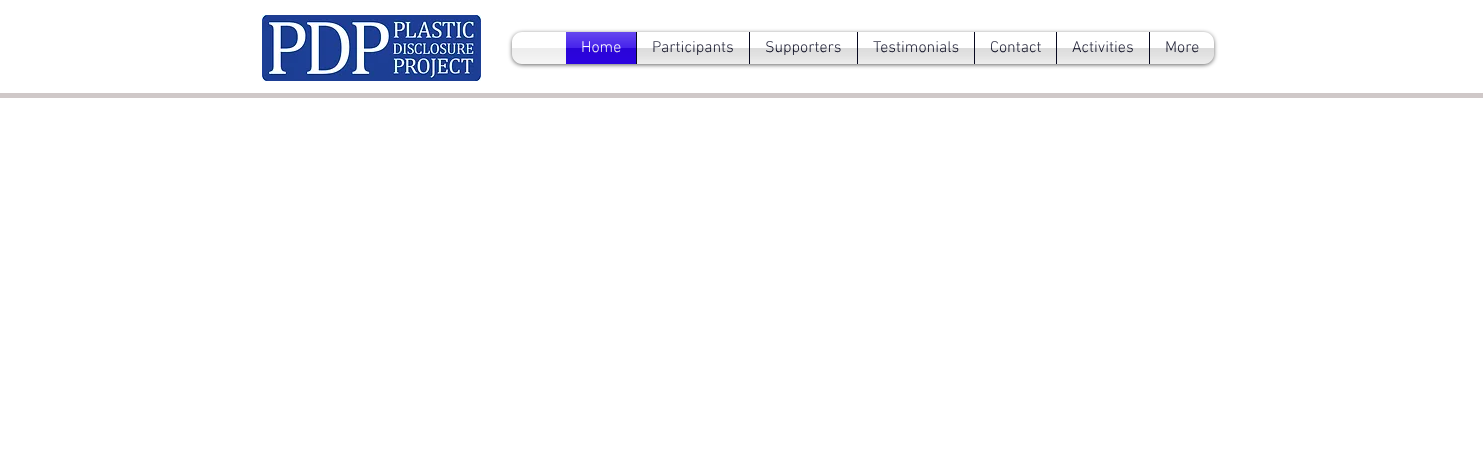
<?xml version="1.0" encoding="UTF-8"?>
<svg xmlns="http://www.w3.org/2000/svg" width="1483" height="462">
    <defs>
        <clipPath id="clip1"><path d="M 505 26 H 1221 V 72 H 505 Z M 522 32 H 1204 C 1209.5 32 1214 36.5 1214 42 V 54 C 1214 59.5 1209.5 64 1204 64 H 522 C 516.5 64 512 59.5 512 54 V 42 C 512 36.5 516.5 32 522 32 Z" clip-rule="evenodd"/></clipPath>
        <filter id="blur1" x="-50%" y="-200%" width="200%" height="500%"><feGaussianBlur stdDeviation="2"/></filter>
    </defs>
    <rect width="100%" height="100%" fill="#FFFFFF"/>
    <image x="262" y="15" width="219" height="66" href="img_01.png"/>
    <g clip-path="url(#clip1)">
        <rect x="512" y="33" width="702" height="32" rx="10" fill="#000000" fill-opacity="0.6" filter="url(#blur1)"/>
    </g>
    <image x="512" y="48" width="702" height="16" href="img_02.png"/>
    <rect x="566" y="32" width="70" height="32" fill="#2E05E9"/>
    <text x="581" y="52" font-family="'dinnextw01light'" font-size="16" font-weight="300" fill="#FFFFFF">Home</text>
    <image x="566" y="32" width="70" height="32" href="img_03.png"/>
    <rect x="636" y="32" width="1" height="32" fill="#07081F"/>
    <text x="652" y="52" font-family="'dinnextw01light'" font-size="16" font-weight="300" fill="#07081F">Participants</text>
    <image x="637" y="41" width="112" height="23" href="img_04.png"/>
    <rect x="749" y="32" width="1" height="32" fill="#07081F"/>
    <text x="765" y="52" font-family="'dinnextw01light'" font-size="16" font-weight="300" fill="#07081F">Supporters</text>
    <image x="750" y="41" width="107" height="23" href="img_05.png"/>
    <rect x="857" y="32" width="1" height="32" fill="#07081F"/>
    <text x="873" y="52" font-family="'dinnextw01light'" font-size="16" font-weight="300" fill="#07081F">Testimonials</text>
    <image x="858" y="41" width="116" height="23" href="img_06.png"/>
    <rect x="974" y="32" width="1" height="32" fill="#07081F"/>
    <text x="990" y="52" font-family="'dinnextw01light'" font-size="16" font-weight="300" fill="#07081F">Contact</text>
    <image x="975" y="41" width="81" height="23" href="img_07.png"/>
    <rect x="1056" y="32" width="1" height="32" fill="#07081F"/>
    <text x="1072" y="52" font-family="'dinnextw01light'" font-size="16" font-weight="300" fill="#07081F">Activities</text>
    <image x="1057" y="41" width="92" height="23" href="img_08.png"/>
    <rect x="1149" y="32" width="1" height="32" fill="#07081F"/>
    <text x="1165" y="52" font-family="'dinnextw01light'" font-size="16" font-weight="300" fill="#07081F">More</text>
    <image x="1150" y="41" width="64" height="23" href="img_09.png"/>
    <rect x="0" y="93" width="1483" height="5" fill="#CFC8C8"/>
</svg>
